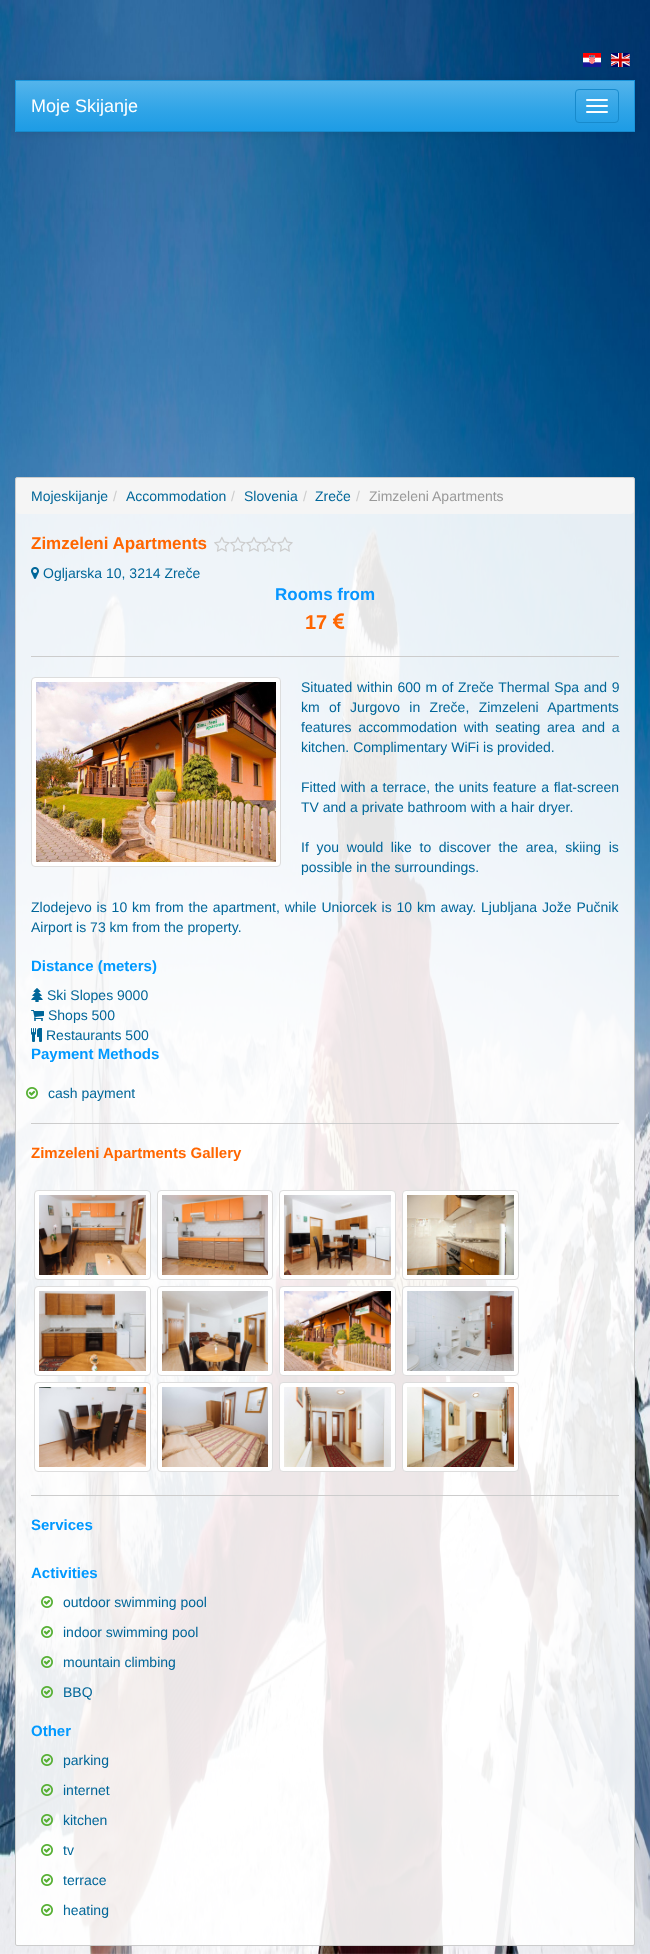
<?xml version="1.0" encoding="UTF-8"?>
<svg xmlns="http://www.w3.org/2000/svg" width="650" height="1954">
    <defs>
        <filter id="blur1" x="-50%" y="-200%" width="200%" height="500%"><feGaussianBlur stdDeviation="5"/></filter>
        <linearGradient id="g1" gradientUnits="userSpaceOnUse" x1="325" y1="81" x2="325" y2="131"><stop offset="0" stop-color="#54B4EB"/><stop offset="0.6" stop-color="#2FA4E7"/><stop offset="1" stop-color="#1D9CE5"/></linearGradient>
    </defs>
    <rect width="100%" height="100%" fill="#FFFFFF"/>
    <image x="0" y="0" width="650" height="1954" href="img_01.png"/>
    <image x="583" y="53" width="18" height="14" href="img_02.png"/>
    <image x="611" y="53" width="19" height="14" href="img_03.png"/>
    <rect x="15" y="81" width="620" height="52" fill="#000000" fill-opacity="0.1" filter="url(#blur1)"/>
    <rect x="16" y="81" width="618" height="50" fill="url(#g1)"/>
    <rect x="15" y="80" width="620" height="1" fill="#1995DC"/>
    <rect x="634" y="80" width="1" height="52" fill="#1995DC"/>
    <rect x="15" y="131" width="620" height="1" fill="#178ACC"/>
    <rect x="15" y="80" width="1" height="52" fill="#1995DC"/>
    <text x="31" y="112" font-family="Liberation Sans" font-size="18" fill="#FFFFFF">Moje Skijanje</text>
    <rect x="575.5" y="89.5" width="43" height="33" rx="3.5" fill="none" stroke="#178ACC"/>
    <rect x="586" y="99" width="22" height="2" rx="1" fill="#FFFFFF"/>
    <rect x="586" y="105" width="22" height="2" rx="1" fill="#FFFFFF"/>
    <rect x="586" y="111" width="22" height="2" rx="1" fill="#FFFFFF"/>
    <rect x="15.5" y="477.5" width="619" height="1468" rx="1.5" fill="#FFFFFF" fill-opacity="0.9" stroke="#CCCCCC"/>
    <rect x="16" y="478" width="618" height="36" rx="4" fill="#F5F5F5"/>
    <text x="31" y="501" font-family="Liberation Sans" font-size="14" fill="#006699">Mojeskijanje</text>
    <text x="113" y="501" font-family="Liberation Sans" font-size="14" fill="#CCCCCC">/</text>
    <text x="126" y="501" font-family="Liberation Sans" font-size="14" fill="#006699">Accommodation</text>
    <text x="231" y="501" font-family="Liberation Sans" font-size="14" fill="#CCCCCC">/</text>
    <text x="244" y="501" font-family="Liberation Sans" font-size="14" fill="#006699">Slovenia</text>
    <text x="303" y="501" font-family="Liberation Sans" font-size="14" fill="#CCCCCC">/</text>
    <text x="315" y="501" font-family="Liberation Sans" font-size="14" fill="#006699">Zreče</text>
    <text x="356" y="501" font-family="Liberation Sans" font-size="14" fill="#CCCCCC">/</text>
    <text x="369" y="501" font-family="Liberation Sans" font-size="14" fill="#999999">Zimzeleni Apartments</text>
    <text x="31" y="549" font-family="Liberation Sans" font-size="17" font-weight="700" fill="#FF6600">Zimzeleni Apartments</text>
    <image x="214" y="536" width="16" height="16" href="img_04.png"/>
    <image x="230" y="536" width="16" height="16" href="img_05.png"/>
    <image x="246" y="536" width="16" height="16" href="img_06.png"/>
    <image x="261" y="536" width="16" height="16" href="img_07.png"/>
    <image x="277" y="536" width="16" height="16" href="img_08.png"/>
    <image x="31" y="567" width="8" height="12" href="img_09.png"/>
    <text x="43" y="578" font-family="Liberation Sans" font-size="14" fill="#006699">Ogljarska 10, 3214 Zreče</text>
    <text x="275" y="600" font-family="Liberation Sans" font-size="17" font-weight="700" fill="#0896FF">Rooms from</text>
    <text x="305" y="629" font-family="Liberation Sans" font-size="20" font-weight="700" fill="#FF6600">17</text>
    <image x="333" y="613" width="12" height="16" href="img_10.png"/>
    <rect x="31" y="656" width="588" height="1" fill="#CCCCCC"/>
    <rect x="31.5" y="677.5" width="249" height="189" rx="3.5" fill="#FFFFFF" stroke="#DDDDDD"/>
    <image x="36" y="682" width="240" height="180" href="img_11.png"/>
    <text font-family="Liberation Sans" font-size="14" fill="#006699">
        <tspan x="301" y="692" word-spacing="0.75">Situated within 600 m of Zreče Thermal Spa and 9</tspan>
        <tspan x="301" y="712" word-spacing="5.5">km of Jurgovo in Zreče, Zimzeleni Apartments</tspan>
        <tspan x="301" y="732" word-spacing="2.75">features accommodation with seating area and a</tspan>
        <tspan x="301" y="752">kitchen. Complimentary WiFi is provided.</tspan>
    </text>
    <text font-family="Liberation Sans" font-size="14" fill="#006699">
        <tspan x="301" y="792" word-spacing="0.75">Fitted with a terrace, the units feature a flat-screen</tspan>
        <tspan x="301" y="812">TV and a private bathroom with a hair dryer.</tspan>
    </text>
    <text font-family="Liberation Sans" font-size="14" fill="#006699">
        <tspan x="301" y="852" word-spacing="3.75">If you would like to discover the area, skiing is</tspan>
        <tspan x="301" y="872">possible in the surroundings.</tspan>
    </text>
    <text font-family="Liberation Sans" font-size="14" fill="#006699">
        <tspan x="31" y="912" word-spacing="1">Zlodejevo is 10 km from the apartment, while Uniorcek is 10 km away. Ljubljana Jože Pučnik</tspan>
        <tspan x="31" y="932">Airport is 73 km from the property.</tspan>
    </text>
    <text x="31" y="971" font-family="Liberation Sans" font-size="15" font-weight="700" fill="#0099FF">Distance (meters)</text>
    <image x="31" y="988" width="12" height="14" href="img_12.png"/>
    <text x="47" y="1000" font-family="Liberation Sans" font-size="14" fill="#006699">Ski Slopes 9000</text>
    <image x="31" y="1010" width="13" height="11" href="img_13.png"/>
    <text x="48" y="1020" font-family="Liberation Sans" font-size="14" fill="#006699">Shops 500</text>
    <image x="31" y="1028" width="11" height="14" href="img_14.png"/>
    <text x="46" y="1040" font-family="Liberation Sans" font-size="14" fill="#006699">Restaurants 500</text>
    <text x="31" y="1059" font-family="Liberation Sans" font-size="15" font-weight="700" fill="#0099FF">Payment Methods</text>
    <image x="26" y="1087" width="12" height="12" href="img_15.png"/>
    <text x="48" y="1098" font-family="Liberation Sans" font-size="14" fill="#006699">cash payment</text>
    <rect x="31" y="1123" width="588" height="1" fill="#CCCCCC"/>
    <text x="31" y="1158" font-family="Liberation Sans" font-size="15" font-weight="700" fill="#FF6600">Zimzeleni Apartments Gallery</text>
    <rect x="34.5" y="1190.5" width="116" height="89" rx="3.5" fill="#FFFFFF" stroke="#DDDDDD"/>
    <image x="39" y="1195" width="107" height="80" href="img_16.png"/>
    <rect x="157.5" y="1190.5" width="115" height="89" rx="3.5" fill="#FFFFFF" stroke="#DDDDDD"/>
    <image x="162" y="1195" width="106" height="80" href="img_17.png"/>
    <rect x="279.5" y="1190.5" width="116" height="89" rx="3.5" fill="#FFFFFF" stroke="#DDDDDD"/>
    <image x="284" y="1195" width="107" height="80" href="img_18.png"/>
    <rect x="402.5" y="1190.5" width="116" height="89" rx="3.5" fill="#FFFFFF" stroke="#DDDDDD"/>
    <image x="407" y="1195" width="107" height="80" href="img_19.png"/>
    <rect x="34.5" y="1286.5" width="116" height="89" rx="3.5" fill="#FFFFFF" stroke="#DDDDDD"/>
    <image x="39" y="1291" width="107" height="80" href="img_20.png"/>
    <rect x="157.5" y="1286.5" width="115" height="89" rx="3.5" fill="#FFFFFF" stroke="#DDDDDD"/>
    <image x="162" y="1291" width="106" height="80" href="img_21.png"/>
    <rect x="279.5" y="1286.5" width="116" height="89" rx="3.5" fill="#FFFFFF" stroke="#DDDDDD"/>
    <image x="284" y="1291" width="107" height="80" href="img_22.png"/>
    <rect x="402.5" y="1286.5" width="116" height="89" rx="3.5" fill="#FFFFFF" stroke="#DDDDDD"/>
    <image x="407" y="1291" width="107" height="80" href="img_23.png"/>
    <rect x="34.5" y="1382.5" width="116" height="89" rx="3.5" fill="#FFFFFF" stroke="#DDDDDD"/>
    <image x="39" y="1387" width="107" height="80" href="img_24.png"/>
    <rect x="157.5" y="1382.5" width="115" height="89" rx="3.5" fill="#FFFFFF" stroke="#DDDDDD"/>
    <image x="162" y="1387" width="106" height="80" href="img_25.png"/>
    <rect x="279.5" y="1382.5" width="116" height="89" rx="3.5" fill="#FFFFFF" stroke="#DDDDDD"/>
    <image x="284" y="1387" width="107" height="80" href="img_26.png"/>
    <rect x="402.5" y="1382.5" width="116" height="89" rx="3.5" fill="#FFFFFF" stroke="#DDDDDD"/>
    <image x="407" y="1387" width="107" height="80" href="img_27.png"/>
    <rect x="31" y="1495" width="588" height="1" fill="#CCCCCC"/>
    <text x="31" y="1530" font-family="Liberation Sans" font-size="15" font-weight="700" fill="#0099FF">Services</text>
    <text x="31" y="1578" font-family="Liberation Sans" font-size="15" font-weight="700" fill="#0099FF">Activities</text>
    <image x="41" y="1596" width="12" height="12" href="img_28.png"/>
    <text x="63" y="1607" font-family="Liberation Sans" font-size="14" fill="#006699">outdoor swimming pool</text>
    <image x="41" y="1626" width="12" height="12" href="img_29.png"/>
    <text x="63" y="1637" font-family="Liberation Sans" font-size="14" fill="#006699">indoor swimming pool</text>
    <image x="41" y="1656" width="12" height="12" href="img_30.png"/>
    <text x="63" y="1667" font-family="Liberation Sans" font-size="14" fill="#006699">mountain climbing</text>
    <image x="41" y="1686" width="12" height="12" href="img_31.png"/>
    <text x="63" y="1697" font-family="Liberation Sans" font-size="14" fill="#006699">BBQ</text>
    <text x="31" y="1736" font-family="Liberation Sans" font-size="15" font-weight="700" fill="#0099FF">Other</text>
    <image x="41" y="1754" width="12" height="12" href="img_32.png"/>
    <text x="63" y="1765" font-family="Liberation Sans" font-size="14" fill="#006699">parking</text>
    <image x="41" y="1784" width="12" height="12" href="img_33.png"/>
    <text x="63" y="1795" font-family="Liberation Sans" font-size="14" fill="#006699">internet</text>
    <image x="41" y="1814" width="12" height="12" href="img_34.png"/>
    <text x="63" y="1825" font-family="Liberation Sans" font-size="14" fill="#006699">kitchen</text>
    <image x="41" y="1844" width="12" height="12" href="img_35.png"/>
    <text x="63" y="1855" font-family="Liberation Sans" font-size="14" fill="#006699">tv</text>
    <image x="41" y="1874" width="12" height="12" href="img_36.png"/>
    <text x="63" y="1885" font-family="Liberation Sans" font-size="14" fill="#006699">terrace</text>
    <image x="41" y="1904" width="12" height="12" href="img_37.png"/>
    <text x="63" y="1915" font-family="Liberation Sans" font-size="14" fill="#006699">heating</text>
</svg>
